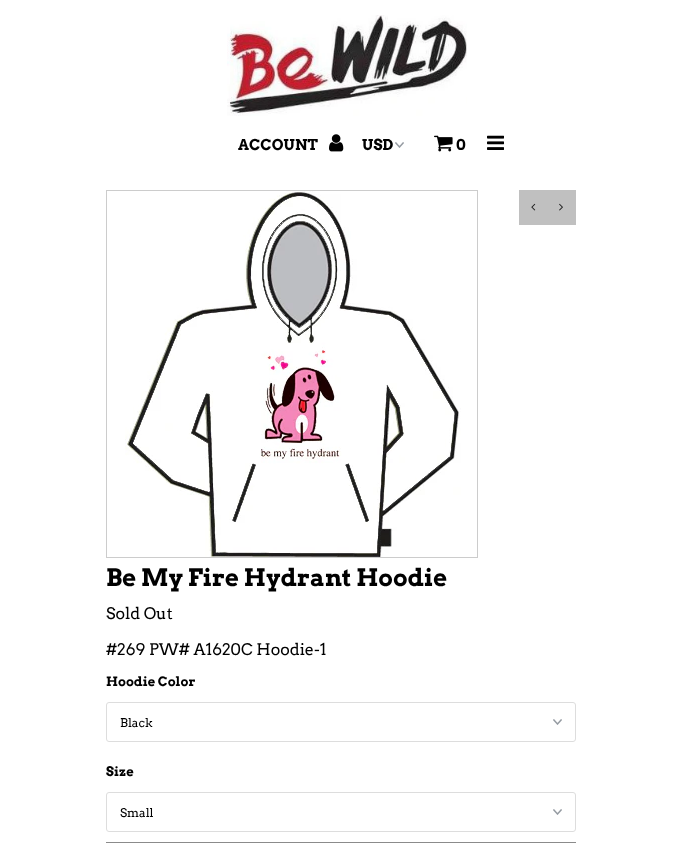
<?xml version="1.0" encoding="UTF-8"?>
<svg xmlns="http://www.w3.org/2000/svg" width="681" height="853">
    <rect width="100%" height="100%" fill="#FFFFFF"/>
    <image x="227" y="15" width="240" height="101" href="img_01.png"/>
    <text x="238" y="150" font-family="Arvo" font-size="15" font-weight="700" fill="#000000">ACCOUNT</text>
    <image x="329" y="134" width="15" height="18" href="img_02.png"/>
    <image x="395" y="142" width="9" height="6" href="img_03.png"/>
    <text x="362" y="150" font-family="Arvo" font-size="15" font-weight="700" fill="#000000">USD</text>
    <image x="434" y="135" width="19" height="17" href="img_04.png"/>
    <text x="456" y="150" font-family="Arvo" font-size="15" font-weight="700" fill="#000000">0</text>
    <image x="487" y="135" width="17" height="15" href="img_05.png"/>
    <rect x="106.5" y="190.5" width="371" height="367" fill="none" stroke="#CCCCCC"/>
    <image x="125" y="191" width="336" height="366" href="img_06.png"/>
    <rect x="519" y="190" width="57" height="35" fill="#C0C0C0"/>
    <image x="531" y="203" width="5" height="8" href="img_07.png"/>
    <image x="559" y="203" width="4" height="8" href="img_08.png"/>
    <text x="106" y="586" font-family="Arvo" font-size="24" font-weight="700" fill="#000000">Be My Fire Hydrant Hoodie</text>
    <text x="106" y="619" font-family="Arvo" font-size="16" fill="#000000">Sold Out</text>
    <text x="106" y="655" font-family="Arvo" font-size="16" fill="#000000">#269 PW# A1620C Hoodie-1</text>
    <rect x="106" y="842" width="470" height="1" fill="#8B8B8B"/>
    <text x="106" y="686" font-family="Arvo" font-size="13" font-weight="700" fill="#000000">Hoodie Color</text>
    <image x="553" y="719" width="9" height="6" href="img_03.png"/>
    <rect x="106.5" y="702.5" width="469" height="39" rx="2.5" fill="none" stroke="#DDDDDD"/>
    <text x="120" y="727" font-family="Arvo" font-size="12" fill="#000000">Black</text>
    <text x="106" y="776" font-family="Arvo" font-size="13" font-weight="700" fill="#000000">Size</text>
    <image x="553" y="809" width="9" height="6" href="img_03.png"/>
    <rect x="106.5" y="792.5" width="469" height="39" rx="2.5" fill="none" stroke="#DDDDDD"/>
    <text x="120" y="817" font-family="Arvo" font-size="12" fill="#000000">Small</text>
</svg>
